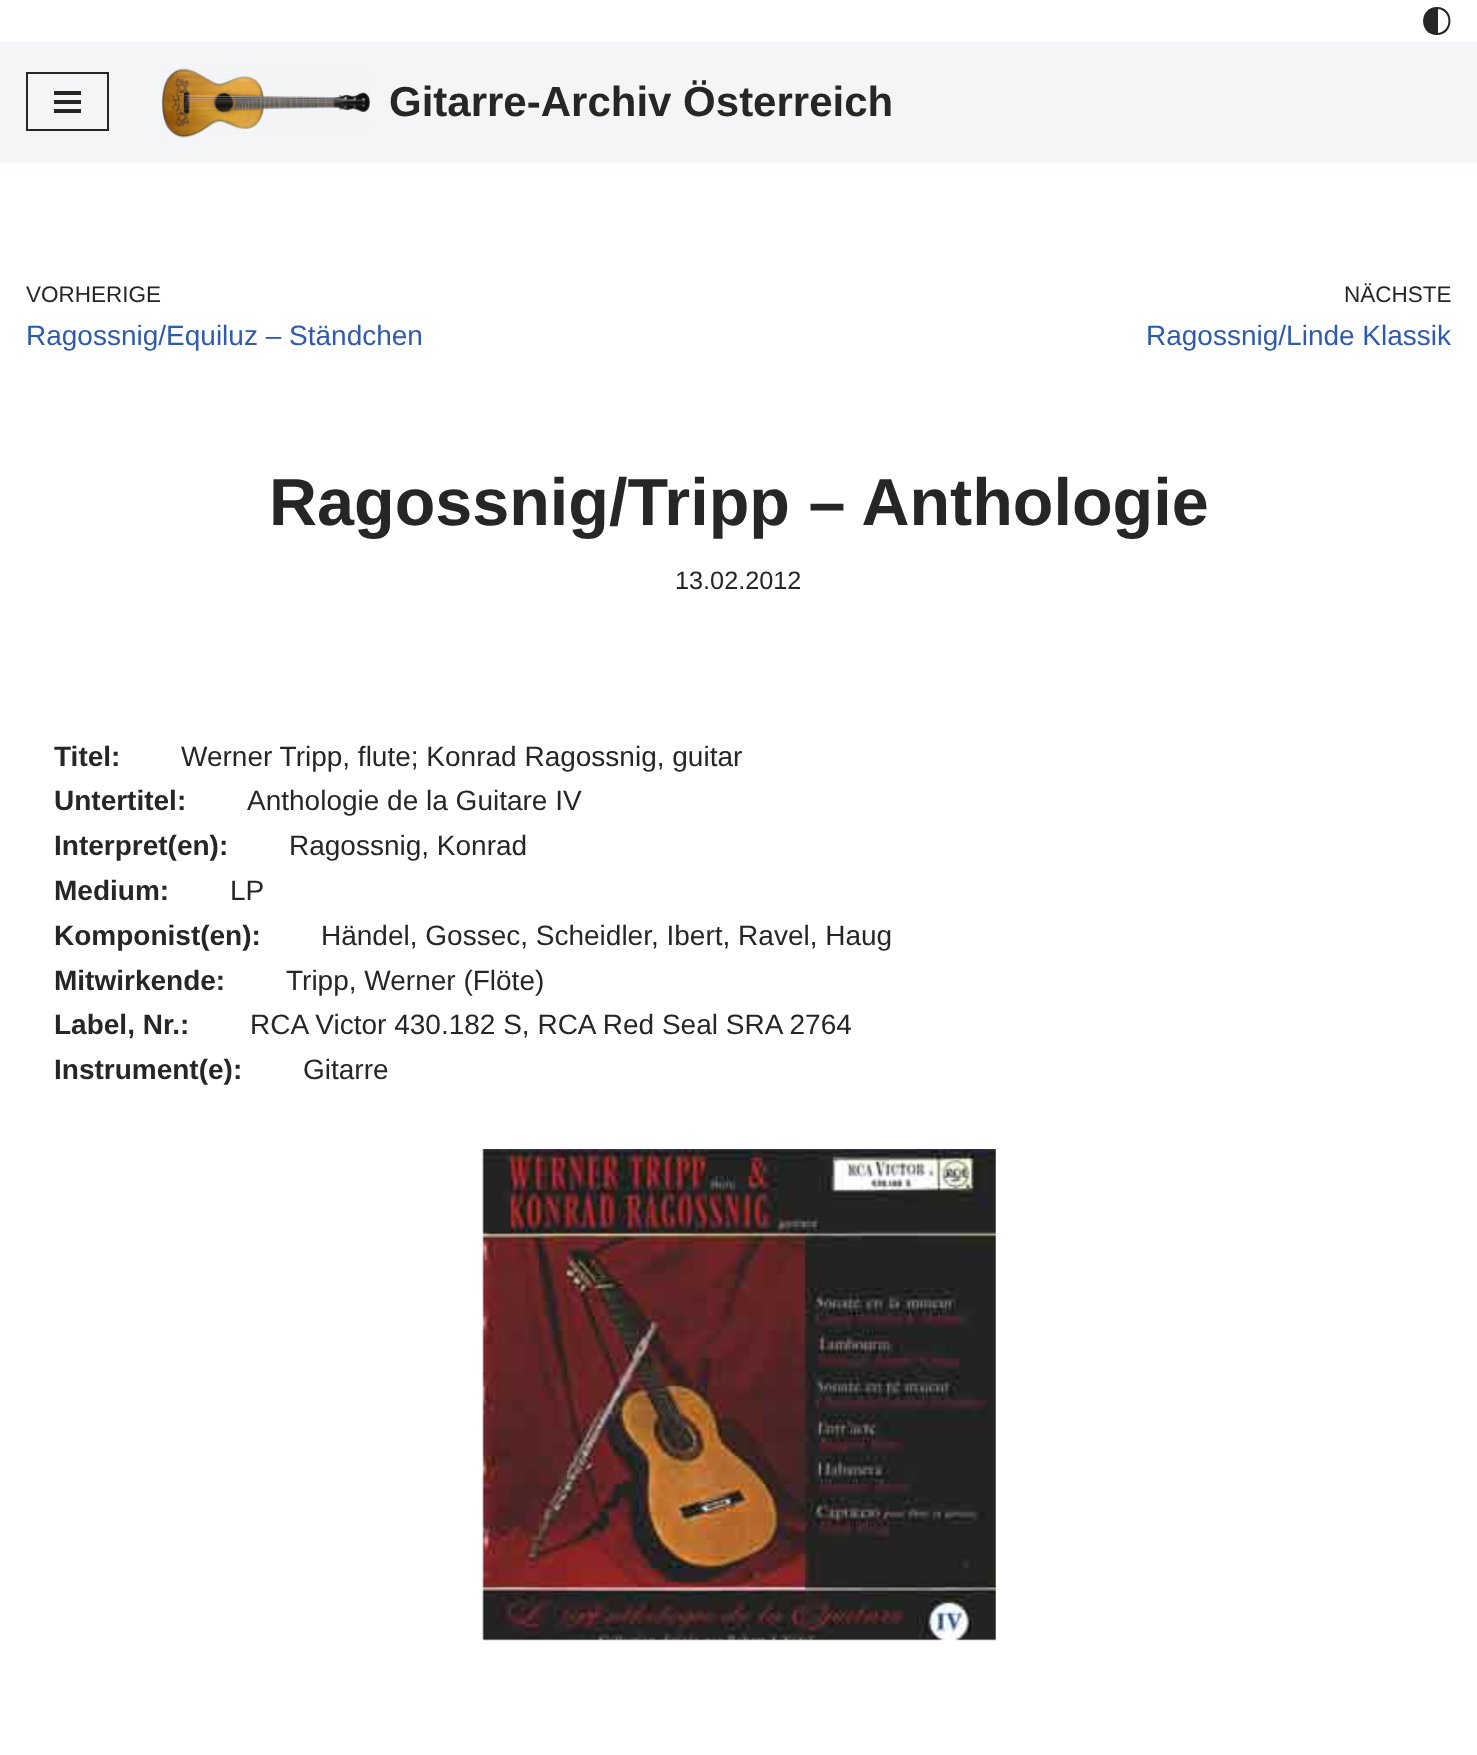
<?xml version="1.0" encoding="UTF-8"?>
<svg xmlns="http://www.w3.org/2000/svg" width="1477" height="1755">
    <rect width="100%" height="100%" fill="#FFFFFF"/>
    <path d="M 1437 7 C 1418.5 7 1418.5 35 1437 35 C 1455 35 1455 7 1437 7 Z M 1438 33 V 9 C 1452 10.5 1452 31.5 1438 33 Z" fill="#272626"/>
    <rect x="0" y="42" width="1477" height="121" fill="#F4F5F7"/>
    <rect x="27" y="73" width="81" height="57" fill="none" stroke="#272626" stroke-width="2"/>
    <rect x="54" y="91" width="27" height="4" fill="#272626"/>
    <rect x="54" y="100" width="27" height="4" fill="#272626"/>
    <rect x="54" y="109" width="27" height="4" fill="#272626"/>
    <image x="161" y="68" width="209" height="70" href="img_01.png"/>
    <text x="389" y="116" font-family="Liberation Sans" font-size="42" font-weight="700" fill="#272626">Gitarre-Archiv Österreich</text>
    <text x="26" y="302" font-family="Liberation Sans" font-size="22.5" fill="#272626">VORHERIGE</text>
    <text x="26" y="345" font-family="Liberation Sans" font-size="28" fill="#2F5AAE">Ragossnig/Equiluz – Ständchen</text>
    <text x="1344" y="302" font-family="Liberation Sans" font-size="22.5" fill="#272626">NÄCHSTE</text>
    <text x="1146" y="345" font-family="Liberation Sans" font-size="28" fill="#2F5AAE">Ragossnig/Linde Klassik</text>
    <text x="269" y="525" font-family="Liberation Sans" font-size="66.5" font-weight="700" fill="#272626">Ragossnig/Tripp – Anthologie</text>
    <text x="675" y="589" font-family="Liberation Sans" font-size="25.25" fill="#272626">13.02.2012</text>
    <text x="54" y="766" font-family="Liberation Sans" font-size="28" font-weight="700" fill="#272626">Titel:</text>
    <text x="181" y="766" font-family="Liberation Sans" font-size="28" fill="#272626">Werner Tripp, flute; Konrad Ragossnig, guitar</text>
    <text x="54" y="810" font-family="Liberation Sans" font-size="28" font-weight="700" fill="#272626">Untertitel:</text>
    <text x="247" y="810" font-family="Liberation Sans" font-size="28" fill="#272626">Anthologie de la Guitare IV</text>
    <text x="54" y="855" font-family="Liberation Sans" font-size="28" font-weight="700" fill="#272626">Interpret(en):</text>
    <text x="289" y="855" font-family="Liberation Sans" font-size="28" fill="#272626">Ragossnig, Konrad</text>
    <text x="54" y="900" font-family="Liberation Sans" font-size="28" font-weight="700" fill="#272626">Medium:</text>
    <text x="230" y="900" font-family="Liberation Sans" font-size="28" fill="#272626">LP</text>
    <text x="54" y="945" font-family="Liberation Sans" font-size="28" font-weight="700" fill="#272626">Komponist(en):</text>
    <text x="321" y="945" font-family="Liberation Sans" font-size="28" fill="#272626">Händel, Gossec, Scheidler, Ibert, Ravel, Haug</text>
    <text x="54" y="990" font-family="Liberation Sans" font-size="28" font-weight="700" fill="#272626">Mitwirkende:</text>
    <text x="286" y="990" font-family="Liberation Sans" font-size="28" fill="#272626">Tripp, Werner (Flöte)</text>
    <text x="54" y="1034" font-family="Liberation Sans" font-size="28" font-weight="700" fill="#272626">Label, Nr.:</text>
    <text x="250" y="1034" font-family="Liberation Sans" font-size="28" fill="#272626">RCA Victor 430.182 S, RCA Red Seal SRA 2764</text>
    <text x="54" y="1079" font-family="Liberation Sans" font-size="28" font-weight="700" fill="#272626">Instrument(e):</text>
    <text x="303" y="1079" font-family="Liberation Sans" font-size="28" fill="#272626">Gitarre</text>
    <image x="482" y="1149" width="514" height="492" href="img_02.png"/>
</svg>
